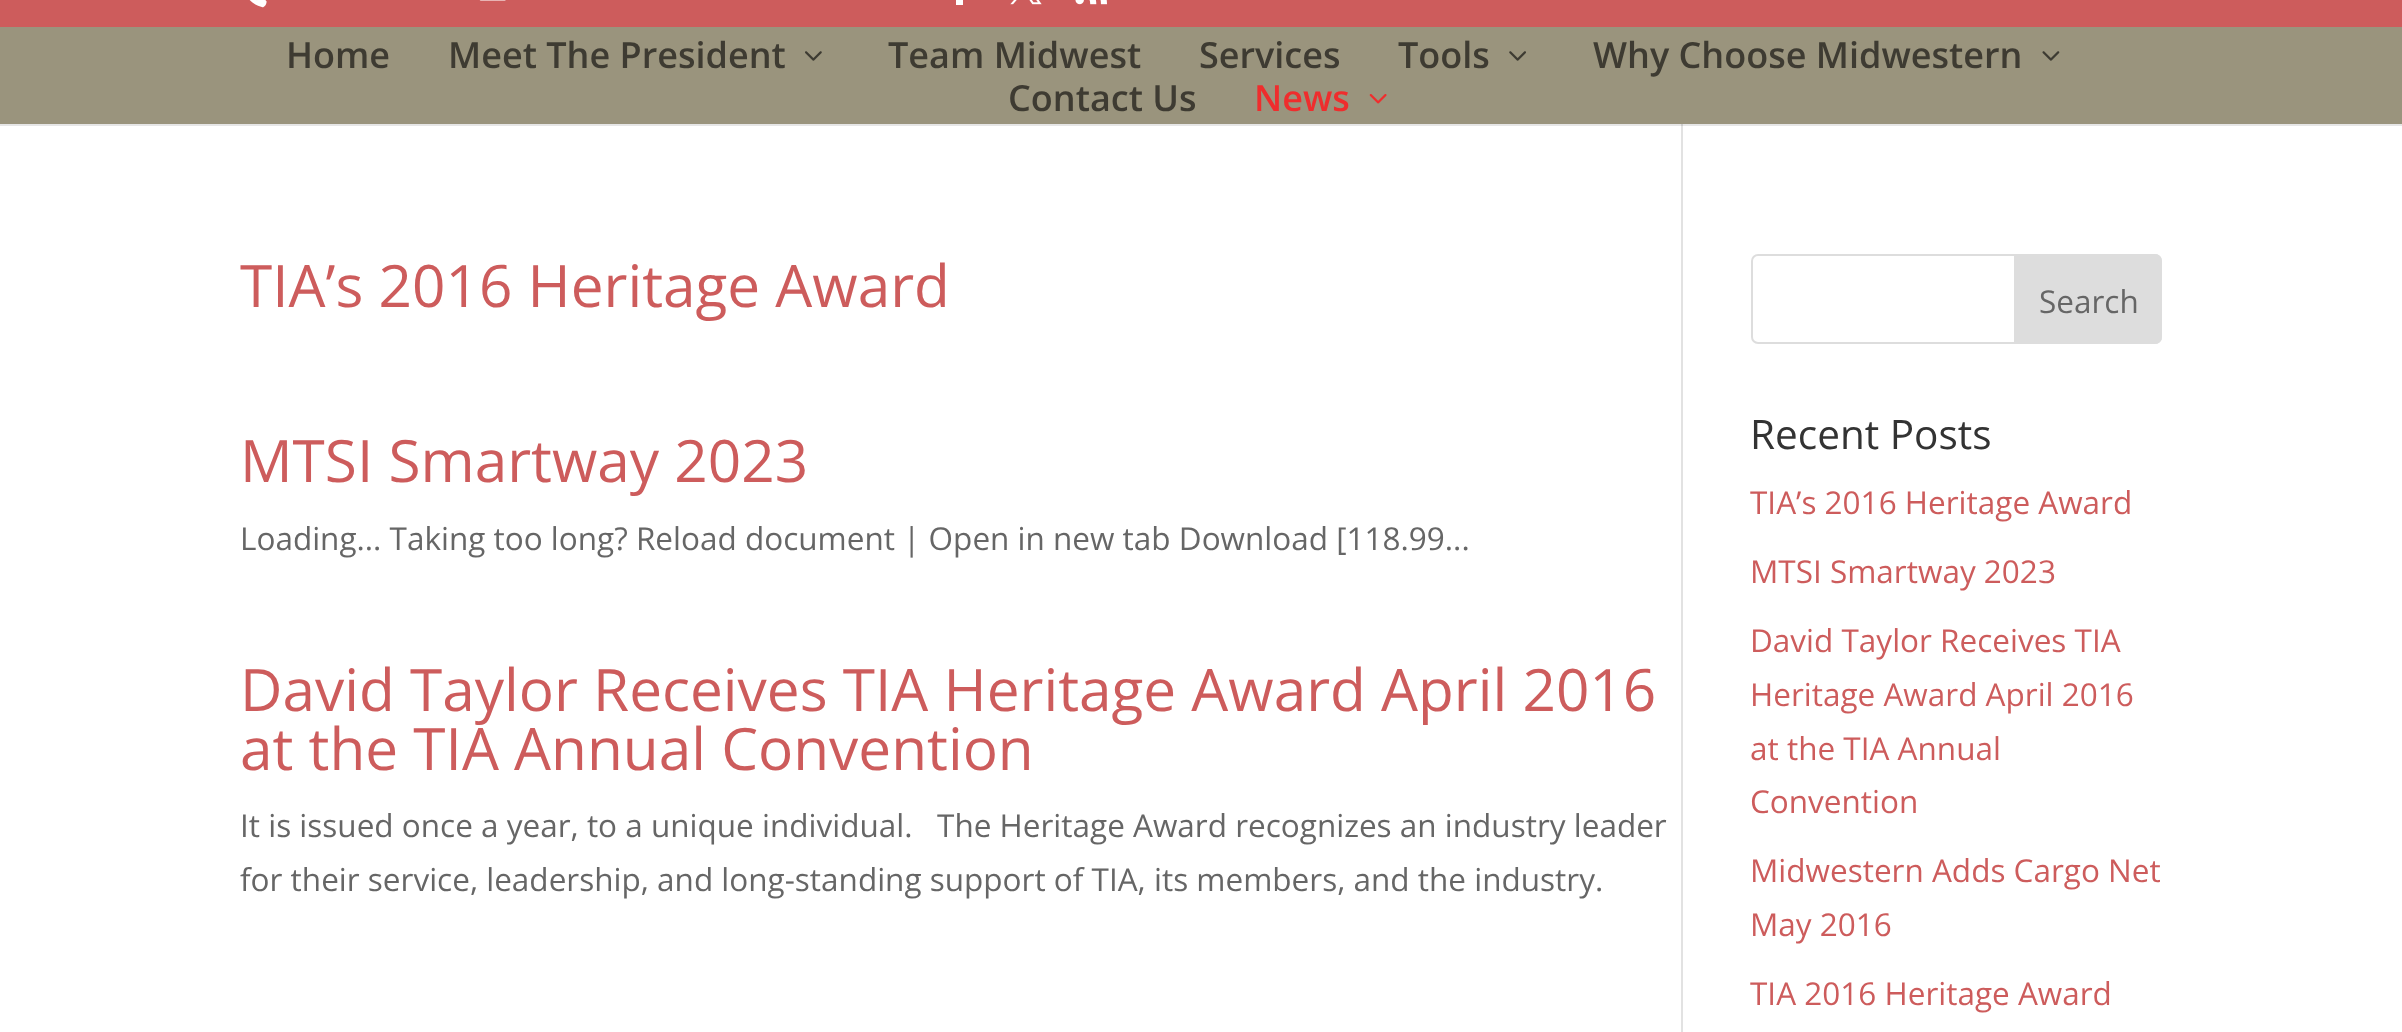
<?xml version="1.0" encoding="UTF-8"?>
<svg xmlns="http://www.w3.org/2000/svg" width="2402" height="1032">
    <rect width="100%" height="100%" fill="#FFFFFF"/>
    <rect x="0" y="124" width="2402" height="2" fill="#E6E6E6"/>
    <rect x="0" y="0" width="2402" height="27" fill="#CD5C5C"/>
    <image x="249" y="0" width="18" height="8" href="img_01.png"/>
    <image x="479" y="0" width="27" height="1" href="img_02.png"/>
    <rect x="956" y="0" width="7" height="5" fill="#FFFFFF"/>
    <image x="1010" y="0" width="32" height="5" href="img_03.png"/>
    <image x="1075" y="0" width="32" height="5" href="img_04.png"/>
    <rect x="0" y="27" width="2402" height="97" fill="#9A947D"/>
    <text x="286" y="68" font-family="Open Sans" font-size="36" font-weight="600" fill="#3E3B32">Home</text>
    <text x="448" y="68" font-family="Open Sans" font-size="36" font-weight="600" fill="#3E3B32">Meet The President</text>
    <image x="805" y="51" width="17" height="10" href="img_05.png"/>
    <text x="888" y="68" font-family="Open Sans" font-size="36" font-weight="600" fill="#3E3B32">Team Midwest</text>
    <text x="1199" y="68" font-family="Open Sans" font-size="36" font-weight="600" fill="#3E3B32">Services</text>
    <text x="1398" y="68" font-family="Open Sans" font-size="36" font-weight="600" fill="#3E3B32">Tools</text>
    <image x="1509" y="51" width="17" height="10" href="img_06.png"/>
    <text x="1593" y="68" font-family="Open Sans" font-size="36" font-weight="600" fill="#3E3B32">Why Choose Midwestern</text>
    <image x="2042" y="51" width="18" height="10" href="img_07.png"/>
    <text x="1008" y="111" font-family="Open Sans" font-size="36" font-weight="600" fill="#3E3B32">Contact Us</text>
    <text x="1254" y="111" font-family="Open Sans" font-size="36" font-weight="600" fill="#EF2D2D">News</text>
    <image x="1369" y="94" width="18" height="10" href="img_08.png"/>
    <rect x="1681" y="124" width="2" height="908" fill="#E2E2E2"/>
    <rect x="1681" y="124" width="2" height="2" fill="#CBCBCB"/>
    <text x="240" y="307" font-family="Open Sans" font-size="58.5" fill="#CD5C5C">TIA’s 2016 Heritage Award</text>
    <text x="240" y="482" font-family="Open Sans" font-size="58.5" fill="#CD5C5C">MTSI Smartway 2023</text>
    <text x="240" y="550" font-family="Open Sans" font-size="31.5" fill="#666666">Loading... Taking too long? Reload document | Open in new tab Download [118.99...</text>
    <text font-family="Open Sans" font-size="58.5" fill="#CD5C5C">
        <tspan x="240" y="711">David Taylor Receives TIA Heritage Award April 2016</tspan>
        <tspan x="240" y="770">at the TIA Annual Convention</tspan>
    </text>
    <text font-family="Open Sans" font-size="31.5" fill="#666666" xml:space="preserve"><tspan x="240" y="837">It is issued once a year, to a unique individual.   The Heritage Award recognizes an industry leader</tspan><tspan x="240" y="891">for their service, leadership, and long-standing support of TIA, its members, and the industry.</tspan></text>
    <rect x="1752" y="255" width="409" height="88" rx="6" fill="none" stroke="#DDDDDD" stroke-width="2"/>
    <path d="M 2015 255 H 2155 C 2158.5 255 2161 257.5 2161 261 V 337 C 2161 340.5 2158.5 343 2155 343 H 2015 Z" fill="#DDDDDD" stroke="#DDDDDD" stroke-width="2"/>
    <text x="2039" y="313" font-family="Open Sans" font-size="31.5" fill="#666666">Search</text>
    <text x="1750" y="449" font-family="Open Sans" font-size="40.5" fill="#333333">Recent Posts</text>
    <text x="1750" y="514" font-family="Open Sans" font-size="31.5" fill="#CD5C5C">TIA’s 2016 Heritage Award</text>
    <text x="1750" y="583" font-family="Open Sans" font-size="31.5" fill="#CD5C5C">MTSI Smartway 2023</text>
    <text font-family="Open Sans" font-size="31.5" fill="#CD5C5C">
        <tspan x="1750" y="652">David Taylor Receives TIA</tspan>
        <tspan x="1750" y="706">Heritage Award April 2016</tspan>
        <tspan x="1750" y="760">at the TIA Annual</tspan>
        <tspan x="1750" y="813">Convention</tspan>
    </text>
    <text font-family="Open Sans" font-size="31.5" fill="#CD5C5C">
        <tspan x="1750" y="882">Midwestern Adds Cargo Net</tspan>
        <tspan x="1750" y="936">May 2016</tspan>
    </text>
    <text x="1750" y="1005" font-family="Open Sans" font-size="31.5" fill="#CD5C5C">TIA 2016 Heritage Award</text>
</svg>
